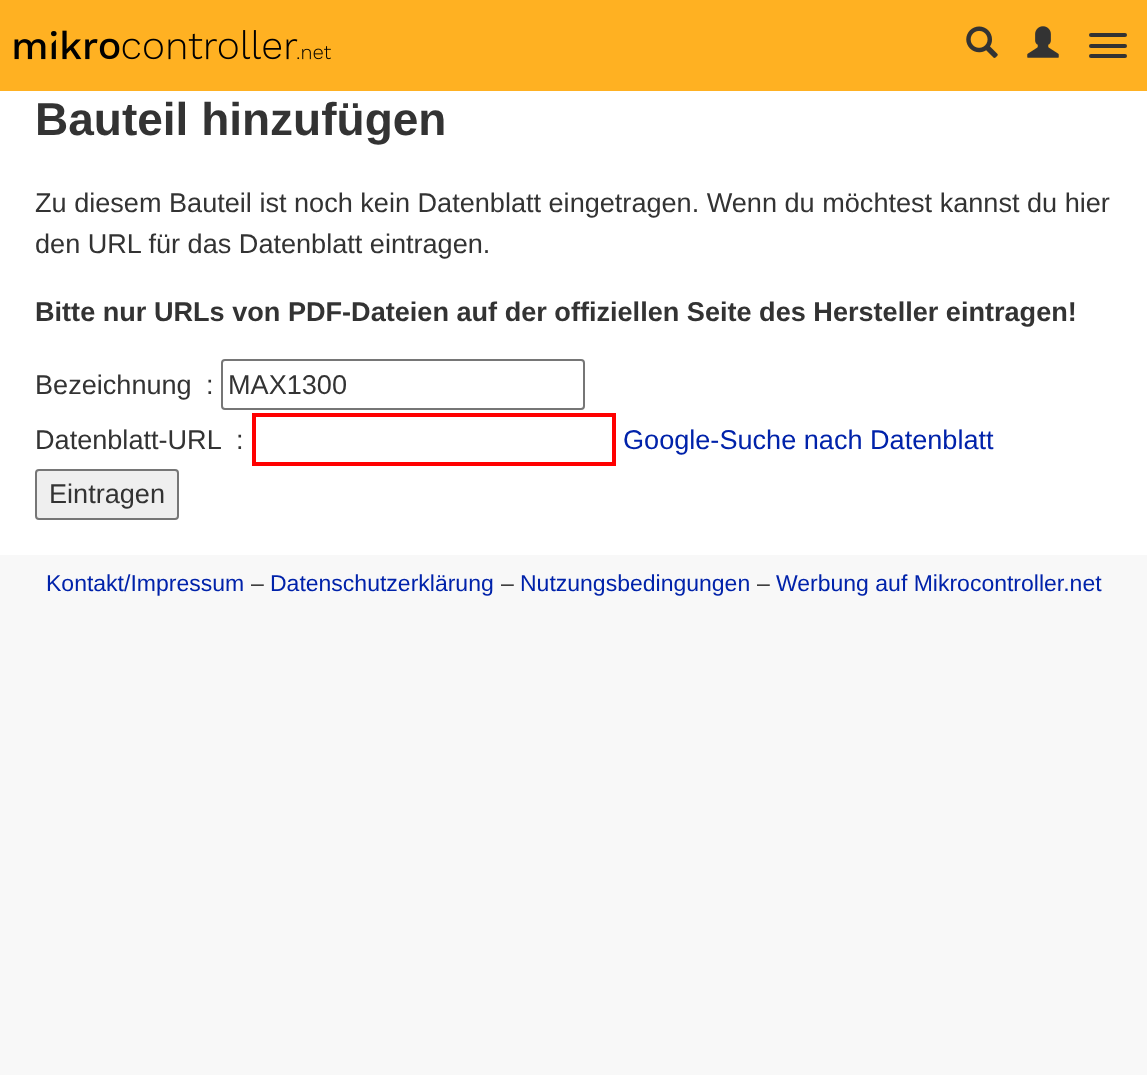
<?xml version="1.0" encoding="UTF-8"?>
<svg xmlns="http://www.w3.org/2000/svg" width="1147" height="1075">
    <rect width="100%" height="100%" fill="#F8F8F8"/>
    <rect x="0" y="0" width="1147" height="91" fill="#FFB122"/>
    <image x="14" y="30" width="317" height="30" href="img_01.png"/>
    <image x="966" y="26" width="32" height="32" href="img_02.png"/>
    <image x="1027" y="26" width="32" height="32" href="img_03.png"/>
    <rect x="1089" y="33" width="38" height="4" rx="2" fill="#333333"/>
    <rect x="1089" y="44" width="38" height="4" rx="2" fill="#333333"/>
    <rect x="1089" y="54" width="38" height="4" rx="2" fill="#333333"/>
    <rect x="0" y="91" width="1147" height="464" fill="#FFFFFF"/>
    <text x="35" y="135" font-family="Liberation Sans" font-size="46" font-weight="700" fill="#333333">Bauteil hinzufügen</text>
    <text font-family="Liberation Sans" font-size="27.1" fill="#333333">
        <tspan x="35" y="212">Zu diesem Bauteil ist noch kein Datenblatt eingetragen. Wenn du möchtest kannst du hier</tspan>
        <tspan x="35" y="253">den URL für das Datenblatt eintragen.</tspan>
    </text>
    <text x="35" y="321" font-family="Liberation Sans" font-size="27.1" font-weight="700" fill="#333333">Bitte nur URLs von PDF-Dateien auf der offiziellen Seite des Hersteller eintragen!</text>
    <text x="35" y="394" font-family="Liberation Sans" font-size="27.1" fill="#333333">Bezeichnung</text>
    <text x="206" y="394" font-family="Liberation Sans" font-size="27.1" fill="#333333">:</text>
    <rect x="222" y="360" width="362" height="49" rx="3" fill="none" stroke="#767676" stroke-width="2"/>
    <text x="228" y="394" font-family="Liberation Sans" font-size="27.1" fill="#333333">MAX1300</text>
    <text x="35" y="449" font-family="Liberation Sans" font-size="27.1" fill="#333333">Datenblatt-URL</text>
    <text x="236" y="449" font-family="Liberation Sans" font-size="27.1" fill="#333333">:</text>
    <rect x="254" y="415" width="360" height="49" fill="none" stroke="#FF0000" stroke-width="4"/>
    <text x="623" y="449" font-family="Liberation Sans" font-size="27.1" fill="#0022AA">Google-Suche nach Datenblatt</text>
    <rect x="36" y="470" width="142" height="49" rx="3" fill="#EFEFEF" stroke="#767676" stroke-width="2"/>
    <text x="49" y="503" font-family="Liberation Sans" font-size="27.1" fill="#333333">Eintragen</text>
    <text x="46" y="591" font-family="Liberation Sans" font-size="23" fill="#0022AA">Kontakt/Impressum</text>
    <text x="251" y="591" font-family="Liberation Sans" font-size="23" fill="#333333">–</text>
    <text x="270" y="591" font-family="Liberation Sans" font-size="23" fill="#0022AA">Datenschutzerklärung</text>
    <text x="501" y="591" font-family="Liberation Sans" font-size="23" fill="#333333">–</text>
    <text x="520" y="591" font-family="Liberation Sans" font-size="23" fill="#0022AA">Nutzungsbedingungen</text>
    <text x="757" y="591" font-family="Liberation Sans" font-size="23" fill="#333333">–</text>
    <text x="776" y="591" font-family="Liberation Sans" font-size="23" fill="#0022AA">Werbung auf Mikrocontroller.net</text>
</svg>
